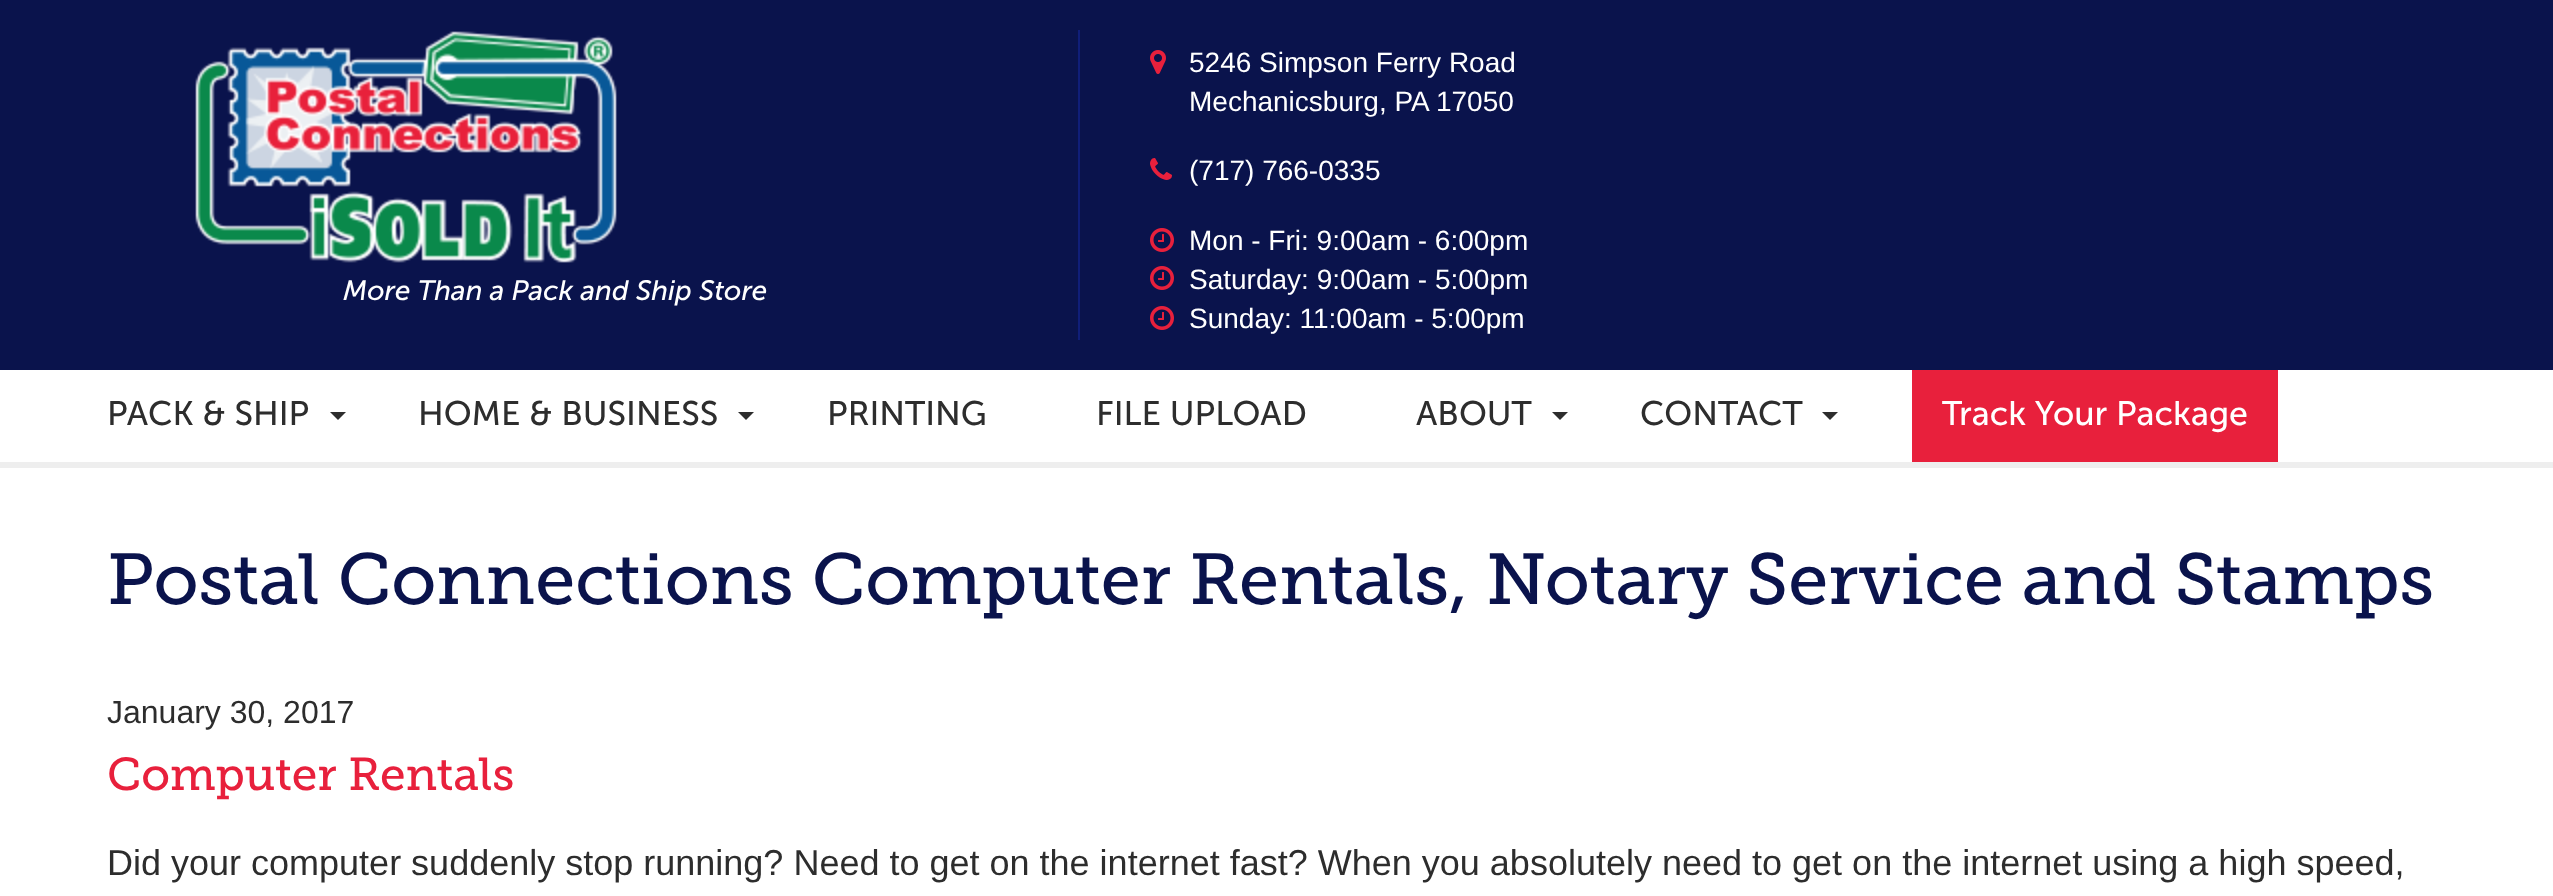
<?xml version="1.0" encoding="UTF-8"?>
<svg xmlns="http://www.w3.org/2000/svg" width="2553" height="896">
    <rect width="100%" height="100%" fill="#FFFFFF"/>
    <rect x="0" y="0" width="2553" height="370" fill="#0A134C"/>
    <image x="195" y="31" width="422" height="232" href="img_01.png"/>
    <text x="343" y="300" font-family="Museo Sans" font-size="28" font-style="italic" fill="#FFFFFF">More Than a Pack and Ship Store</text>
    <rect x="1078" y="30" width="2" height="310" fill="#101E79"/>
    <image x="1150" y="50" width="16" height="24" href="img_02.png"/>
    <text font-family="Liberation Sans" font-size="28" fill="#FFFFFF">
        <tspan x="1189" y="72">5246 Simpson Ferry Road</tspan>
        <tspan x="1189" y="111">Mechanicsburg, PA 17050</tspan>
    </text>
    <image x="1150" y="158" width="22" height="22" href="img_03.png"/>
    <text x="1189" y="180" font-family="Liberation Sans" font-size="28" fill="#FFFFFF">(717) 766-0335</text>
    <image x="1150" y="228" width="24" height="24" href="img_04.png"/>
    <text x="1189" y="250" font-family="Liberation Sans" font-size="28" fill="#FFFFFF">Mon - Fri: 9:00am - 6:00pm</text>
    <image x="1150" y="266" width="24" height="24" href="img_04.png"/>
    <text x="1189" y="289" font-family="Liberation Sans" font-size="28" fill="#FFFFFF">Saturday: 9:00am - 5:00pm</text>
    <image x="1150" y="306" width="24" height="24" href="img_04.png"/>
    <text x="1189" y="328" font-family="Liberation Sans" font-size="28" fill="#FFFFFF">Sunday: 11:00am - 5:00pm</text>
    <text x="107" y="425" font-family="Museo Sans" font-size="34" fill="#2D2D2D">PACK &amp; SHIP</text>
    <path d="M 330 412 H 346 L 338 420 Z" fill="#2D2D2D"/>
    <text x="418" y="425" font-family="Museo Sans" font-size="34" fill="#2D2D2D">HOME &amp; BUSINESS</text>
    <path d="M 738 412 H 754 L 746 420 Z" fill="#2D2D2D"/>
    <text x="827" y="425" font-family="Museo Sans" font-size="34" fill="#2D2D2D">PRINTING</text>
    <text x="1096" y="425" font-family="Museo Sans" font-size="34" fill="#2D2D2D">FILE UPLOAD</text>
    <text x="1416" y="425" font-family="Museo Sans" font-size="34" fill="#2D2D2D">ABOUT</text>
    <path d="M 1552 412 H 1568 L 1560 420 Z" fill="#2D2D2D"/>
    <text x="1640" y="425" font-family="Museo Sans" font-size="34" fill="#2D2D2D">CONTACT</text>
    <path d="M 1822 412 H 1838 L 1830 420 Z" fill="#2D2D2D"/>
    <rect x="1912" y="370" width="366" height="92" fill="#E8203C"/>
    <text x="1942" y="425" font-family="Museo Sans" font-size="34" fill="#FFFFFF">Track Your Package</text>
    <rect x="0" y="462" width="2553" height="6" fill="#EEEEEE"/>
    <text x="107" y="604" font-family="Museo Slab" font-size="72" fill="#0A134C">Postal Connections Computer Rentals, Notary Service and Stamps</text>
    <text x="107" y="723" font-family="Liberation Sans" font-size="32" fill="#2D2D2D">January 30, 2017</text>
    <text x="107" y="790" font-family="Museo Slab" font-size="46" fill="#E8203C">Computer Rentals</text>
    <text x="107" y="875" font-family="Liberation Sans" font-size="36" fill="#2D2D2D">Did your computer suddenly stop running? Need to get on the internet fast? When you absolutely need to get on the internet using a high speed,</text>
</svg>
